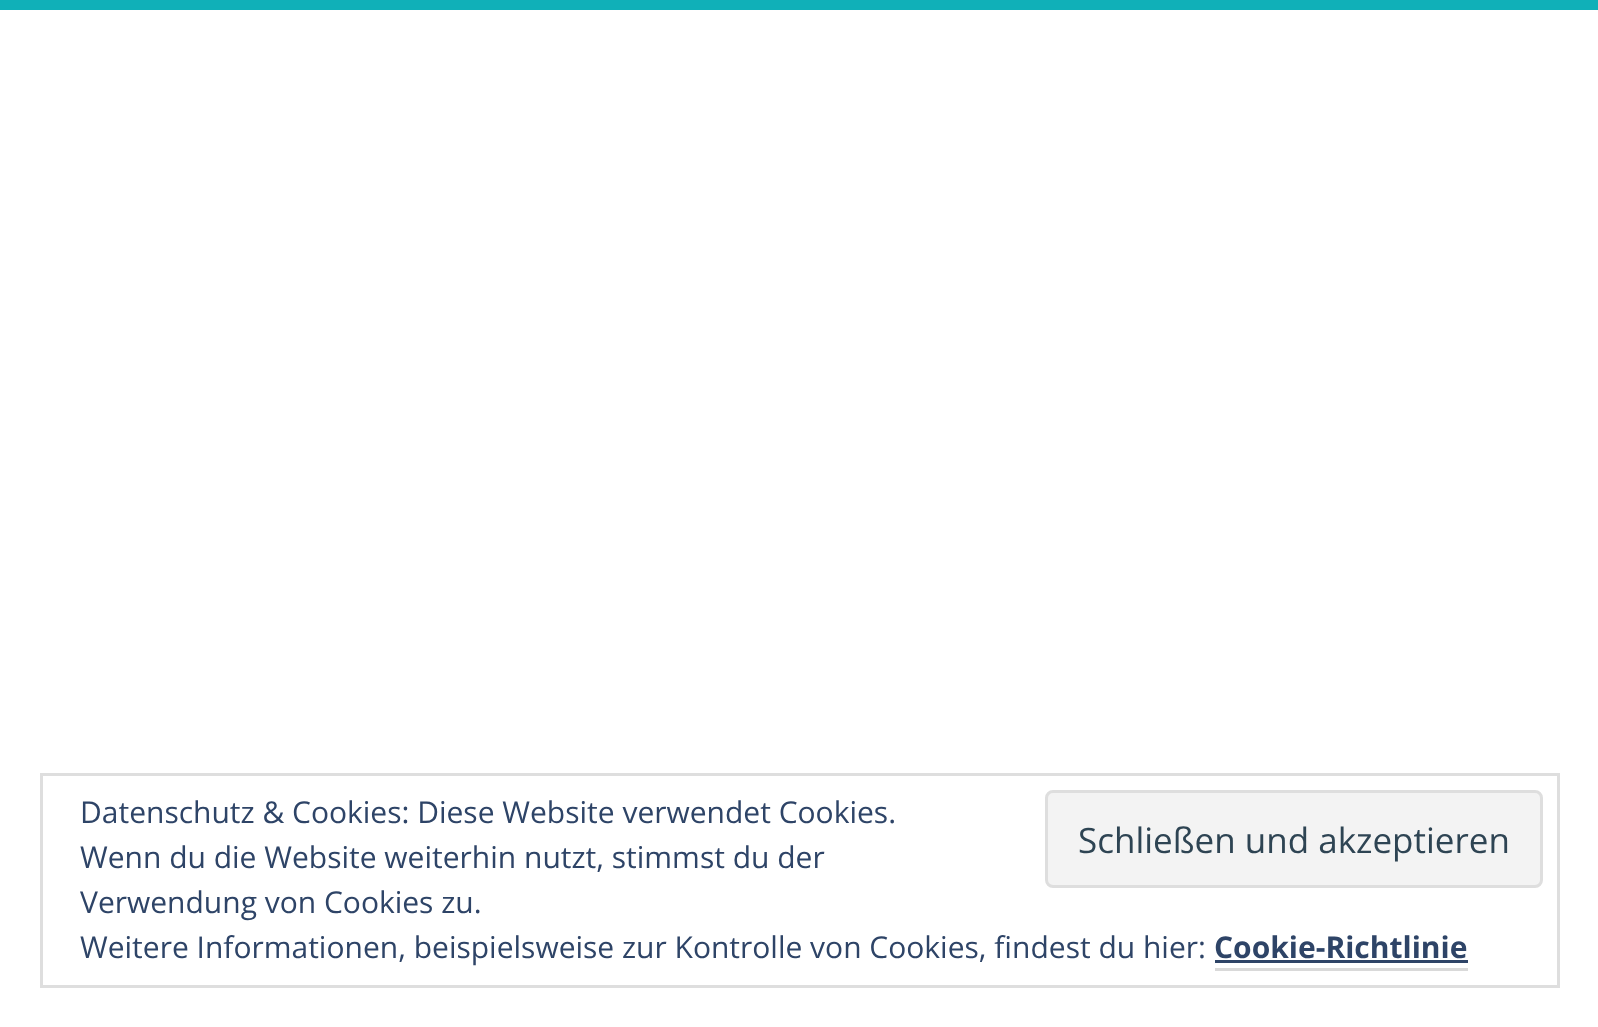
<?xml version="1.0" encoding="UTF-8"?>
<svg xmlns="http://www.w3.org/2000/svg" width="1598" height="1027">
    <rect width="100%" height="100%" fill="#FFFFFF"/>
    <rect x="0" y="0" width="1598" height="10" fill="#10B0B8"/>
    <rect x="41.5" y="774.5" width="1517" height="212" fill="none" stroke="#DEDEDE" stroke-width="3"/>
    <text font-family="Open Sans" font-size="30" fill="#2E4467">
        <tspan x="80" y="823">Datenschutz &amp; Cookies: Diese Website verwendet Cookies.</tspan>
        <tspan x="80" y="868">Wenn du die Website weiterhin nutzt, stimmst du der</tspan>
    </text>
    <rect x="1046.5" y="791.5" width="495" height="95" rx="6.5" fill="#F3F3F3" stroke="#DEDEDE" stroke-width="3"/>
    <text x="1078" y="853" font-family="Open Sans" font-size="35" fill="#2E4453">Schließen und akzeptieren</text>
    <text font-family="Open Sans" font-size="30" fill="#2E4467">
        <tspan x="80" y="913">Verwendung von Cookies zu.</tspan>
        <tspan x="80" y="958">Weitere Informationen, beispielsweise zur Kontrolle von Cookies, findest du hier:</tspan>
    </text>
    <text x="1214" y="958" font-family="Open Sans" font-size="30" font-weight="700" fill="#2E4467">Cookie-Richtlinie</text>
    <rect x="1215" y="968" width="253" height="3" fill="#D9D9D9"/>
    <rect x="1215" y="960" width="253" height="3" fill="#2E4467"/>
</svg>
